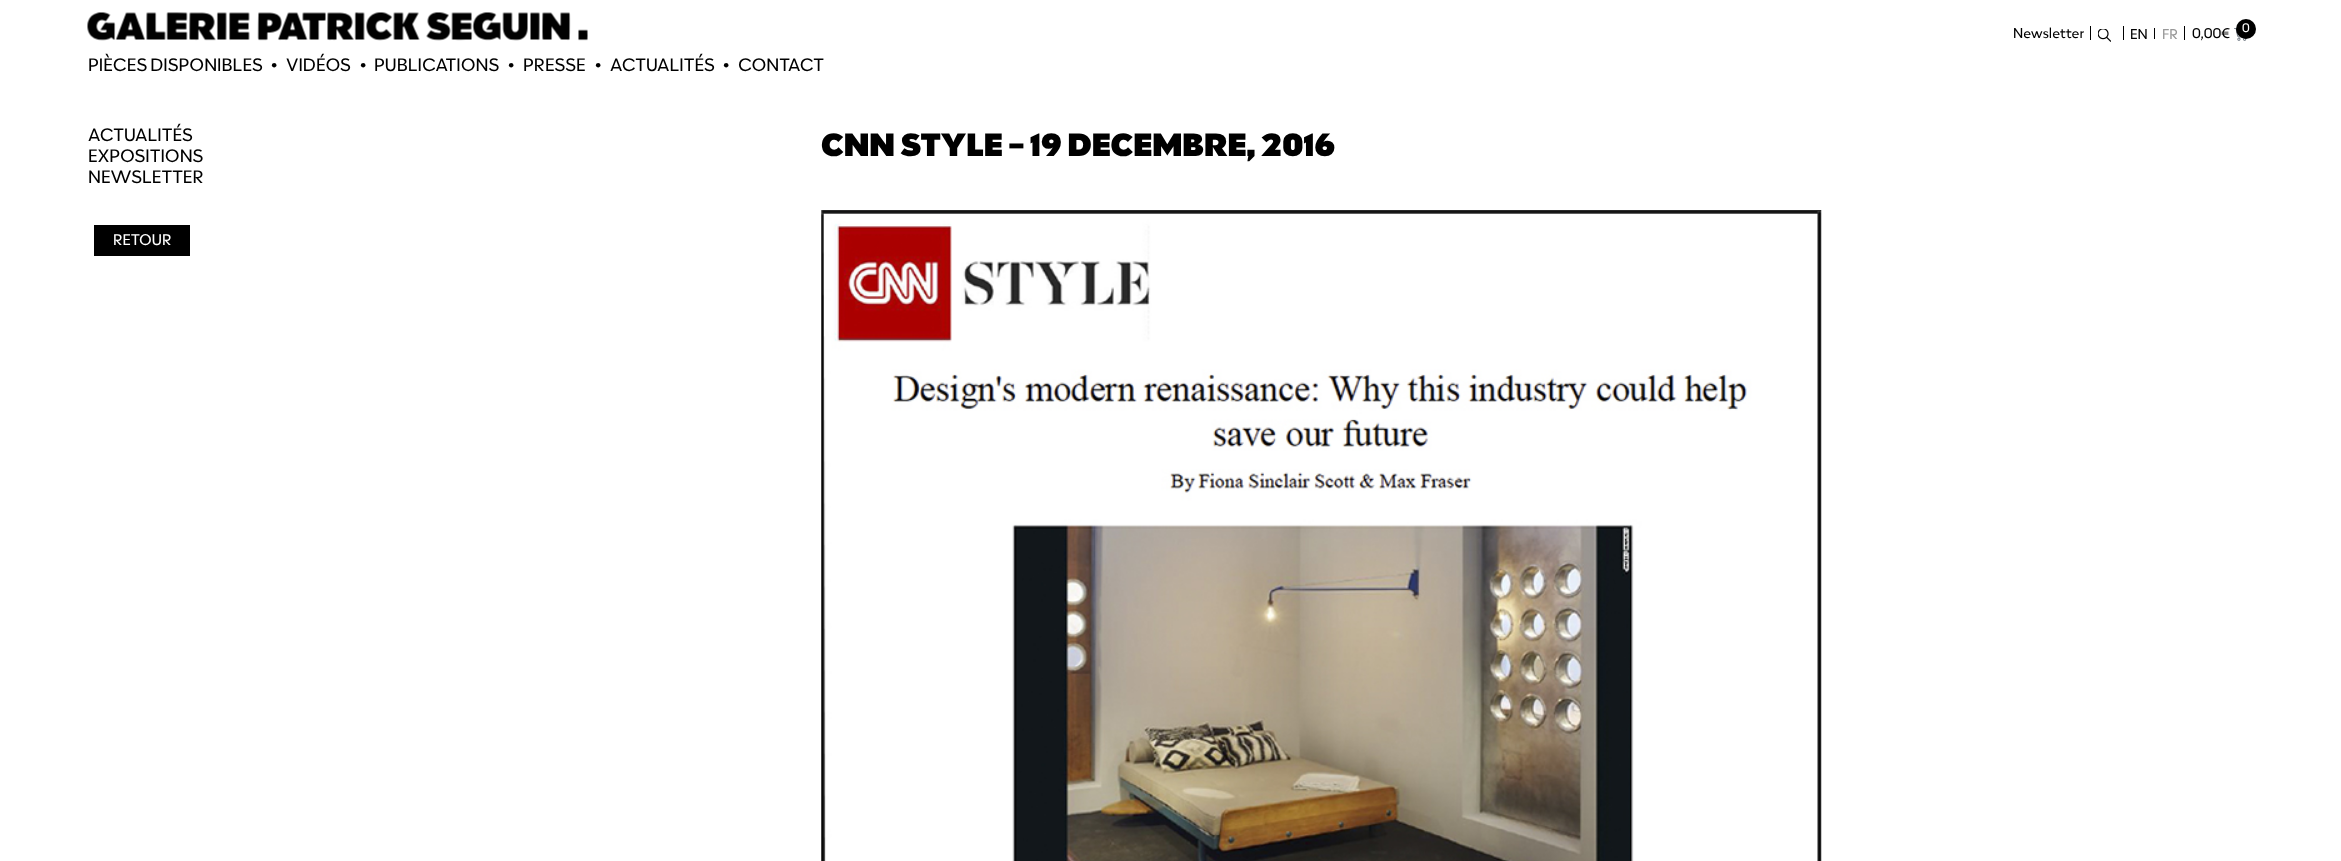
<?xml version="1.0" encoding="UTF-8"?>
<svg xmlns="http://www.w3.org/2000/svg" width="2341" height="861">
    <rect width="100%" height="100%" fill="#FFFFFF"/>
    <image x="87" y="12" width="501" height="29" href="img_01.png"/>
    <text x="2013" y="38" font-family="'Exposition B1'" font-size="13.75" fill="#000000">Newsletter</text>
    <rect x="2090" y="26" width="1" height="14" fill="#000000"/>
    <image x="2098" y="29" width="13" height="13" href="img_02.png"/>
    <rect x="2123" y="26" width="1" height="14" fill="#000000"/>
    <rect x="2154" y="28" width="1" height="11" fill="#000000"/>
    <text x="2130" y="39" font-family="'Exposition B1'" font-size="13.75" fill="#000000">EN</text>
    <text x="2162" y="39" font-family="'Exposition B1'" font-size="13.75" fill="#999999">FR</text>
    <rect x="2184" y="26" width="1" height="14" fill="#000000"/>
    <text x="2192" y="38" font-family="'Exposition B1'" font-size="13.75" fill="#000000">0,00€</text>
    <image x="2234" y="28" width="13" height="13" href="img_03.png"/>
    <circle cx="2246" cy="29" r="10" fill="#000000"/>
    <text x="2242" y="32" font-family="'Exposition B1'" font-size="12" fill="#FFFFFF">0</text>
    <text x="88" y="71" font-family="'Exposition B1'" font-size="17.5" fill="#000000">PIÈCES DISPONIBLES</text>
    <text x="271" y="70" font-family="'Exposition B1'" font-size="19" fill="#000000">•</text>
    <text x="286" y="71" font-family="'Exposition B1'" font-size="17.5" fill="#000000">VIDÉOS</text>
    <text x="360" y="70" font-family="'Exposition B1'" font-size="19" fill="#000000">•</text>
    <text x="374" y="71" font-family="'Exposition B1'" font-size="17.5" fill="#000000">PUBLICATIONS</text>
    <text x="508" y="70" font-family="'Exposition B1'" font-size="19" fill="#000000">•</text>
    <text x="523" y="71" font-family="'Exposition B1'" font-size="17.5" fill="#000000">PRESSE</text>
    <text x="595" y="70" font-family="'Exposition B1'" font-size="19" fill="#000000">•</text>
    <text x="610" y="71" font-family="'Exposition B1'" font-size="17.5" fill="#000000">ACTUALITÉS</text>
    <text x="723" y="70" font-family="'Exposition B1'" font-size="19" fill="#000000">•</text>
    <text x="738" y="71" font-family="'Exposition B1'" font-size="17.5" fill="#000000">CONTACT</text>
    <text font-family="'Exposition B1'" font-size="17.5" fill="#000000">
        <tspan x="88" y="141">ACTUALITÉS</tspan>
        <tspan x="88" y="162">EXPOSITIONS</tspan>
        <tspan x="88" y="183">NEWSLETTER</tspan>
    </text>
    <rect x="94" y="225" width="96" height="31" fill="#000000"/>
    <text x="113" y="245" font-family="'Exposition B1'" font-size="15" fill="#FFFFFF">RETOUR</text>
    <text x="821" y="156" font-family="'Exposition B1'" font-size="31.25" font-weight="900" fill="#000000">CNN STYLE – 19 DECEMBRE, 2016</text>
    <image x="821" y="210" width="1001" height="651" href="img_04.png"/>
</svg>
